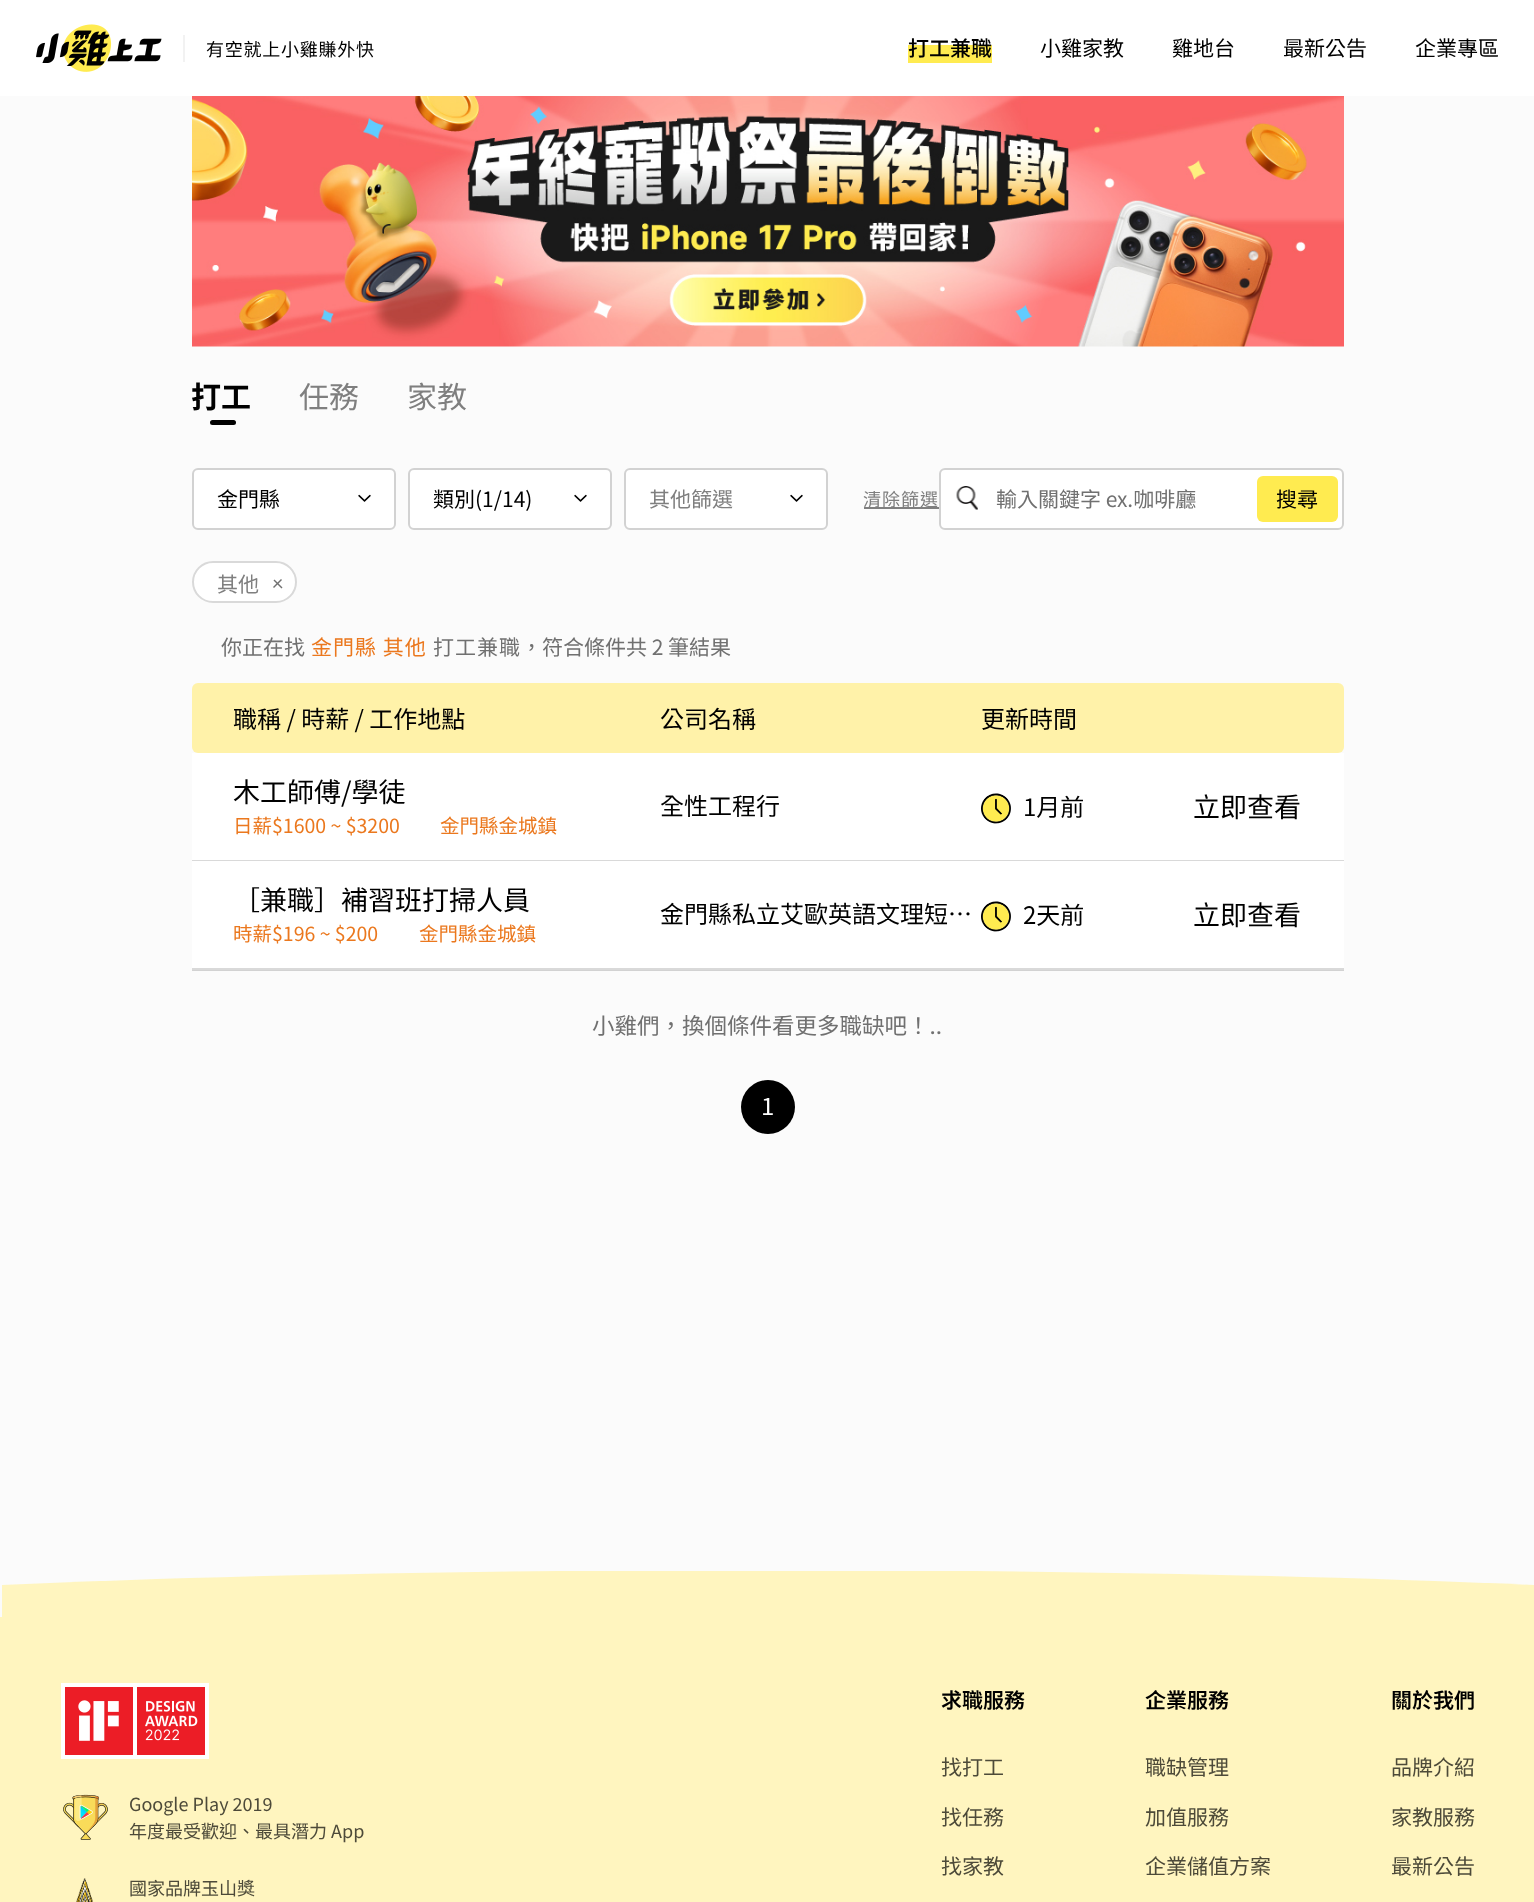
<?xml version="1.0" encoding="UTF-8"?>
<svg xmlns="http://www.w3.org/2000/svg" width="1534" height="1902">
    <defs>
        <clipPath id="clip1"><rect x="2" y="1571" width="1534" height="54"/></clipPath>
    </defs>
    <rect width="100%" height="100%" fill="#FFFFFF"/>
    <image x="36" y="24" width="126" height="48" href="img_01.png"/>
    <rect x="183" y="35" width="2" height="27" fill="#F2F2F2"/>
    <text x="206" y="56" font-family="Noto Sans TC" font-size="18" letter-spacing="0.75" fill="#000000">有空就上小雞賺外快</text>
    <rect x="908" y="45" width="84" height="18" fill="#FFEB50"/>
    <text x="908" y="56" font-family="Noto Sans TC" font-size="21" font-weight="500" fill="#000000">打工兼職</text>
    <text x="1040" y="56" font-family="Noto Sans TC" font-size="21" fill="#000000">小雞家教</text>
    <text x="1172" y="56" font-family="Noto Sans TC" font-size="21" fill="#000000">雞地台</text>
    <text x="1283" y="56" font-family="Noto Sans TC" font-size="21" fill="#000000">最新公告</text>
    <text x="1415" y="56" font-family="Noto Sans TC" font-size="21" fill="#000000">企業專區</text>
    <rect x="0" y="96" width="1534" height="1521" fill="#FBFBFB"/>
    <image x="192" y="96" width="1152" height="251" href="img_02.png"/>
    <text x="191" y="408" font-family="Noto Sans TC" font-size="30" font-weight="700" fill="#000000">打工</text>
    <rect x="210" y="420" width="26" height="5" rx="2.5" fill="#000000"/>
    <text x="299" y="408" font-family="Noto Sans TC" font-size="30" fill="#7F7F7F">任務</text>
    <text x="407" y="408" font-family="Noto Sans TC" font-size="30" fill="#7F7F7F">家教</text>
    <rect x="193" y="469" width="202" height="60" rx="5" fill="#FFFFFF" stroke="#D2D2D2" stroke-width="2"/>
    <text x="217" y="507" font-family="Noto Sans TC" font-size="21" fill="#000000">金門縣</text>
    <image x="358" y="494" width="13" height="8" href="img_03.png"/>
    <rect x="409" y="469" width="202" height="60" rx="5" fill="#FFFFFF" stroke="#D2D2D2" stroke-width="2"/>
    <text x="433" y="507" font-family="Noto Sans TC" font-size="21" fill="#000000">類別(1/14)</text>
    <image x="574" y="494" width="13" height="8" href="img_03.png"/>
    <rect x="625" y="469" width="202" height="60" rx="5" fill="#FFFFFF" stroke="#D2D2D2" stroke-width="2"/>
    <text x="649" y="507" font-family="Noto Sans TC" font-size="21" fill="#7F7F7F">其他篩選</text>
    <image x="790" y="494" width="13" height="8" href="img_03.png"/>
    <rect x="864" y="507" width="75" height="2" fill="#7F7F7F"/>
    <text x="863" y="506" font-family="Noto Sans TC" font-size="18" letter-spacing="1" fill="#7F7F7F">清除篩選</text>
    <rect x="940" y="469" width="403" height="60" rx="5" fill="#FFFFFF" stroke="#D2D2D2" stroke-width="2"/>
    <image x="956" y="486" width="22" height="24" href="img_04.png"/>
    <text x="996" y="507" font-family="Noto Sans TC" font-size="21" fill="#707070">輸入關鍵字 ex.咖啡廳</text>
    <rect x="1257" y="476" width="81" height="46" rx="6" fill="#FFEB50"/>
    <text x="1276" y="507" font-family="Noto Sans TC" font-size="21" fill="#000000">搜尋</text>
    <rect x="193" y="562" width="103" height="40" rx="20" fill="#FFFFFF" stroke="#D9D9D9" stroke-width="2"/>
    <text x="217" y="592" font-family="Noto Sans TC" font-size="21" fill="#7F7F7F">其他</text>
    <path d="M 281.5 588.5 L 273.5 580.5 L 274.5 579.5 L 282.5 587.5 Z" fill="#707070"/>
    <path d="M 282 580 L 274 588 L 273 587 L 281 579 Z" fill="#707070"/>
    <text x="221" y="655" font-family="Noto Sans TC" font-size="21" fill="#707070">你正在找</text>
    <text x="311" y="655" font-family="Noto Sans TC" font-size="21" letter-spacing="1" fill="#EB781E">金門縣 其他</text>
    <text x="433" y="655" font-family="Noto Sans TC" font-size="21" letter-spacing="1" fill="#707070">打工兼職</text>
    <text x="521" y="655" font-family="Noto Sans TC" font-size="21" fill="#707070">，符合條件共 2 筆結果</text>
    <rect x="192" y="683" width="1152" height="70" rx="6" fill="#FFF2A9"/>
    <text x="233" y="728" font-family="Noto Sans TC" font-size="24" fill="#000000">職稱 / 時薪 / 工作地點</text>
    <text x="660" y="728" font-family="Noto Sans TC" font-size="24" fill="#000000">公司名稱</text>
    <text x="981" y="728" font-family="Noto Sans TC" font-size="24" fill="#000000">更新時間</text>
    <rect x="192" y="753" width="1152" height="107" fill="#FFFFFF"/>
    <rect x="192" y="860" width="1152" height="1" fill="#D9D9D9"/>
    <text x="233" y="802" font-family="Noto Sans TC" font-size="27" fill="#000000">木工師傅/學徒</text>
    <text x="233" y="833" font-family="Noto Sans TC" font-size="19.5" fill="#EB781E">日薪$1600 ~ $3200</text>
    <text x="440" y="833" font-family="Noto Sans TC" font-size="19.5" fill="#EB781E">金門縣金城鎮</text>
    <text x="660" y="815" font-family="Noto Sans TC" font-size="24" fill="#000000">全性工程行</text>
    <image x="981" y="793" width="30" height="31" href="img_05.png"/>
    <text x="1023" y="816" font-family="Noto Sans TC" font-size="24" fill="#000000">1月前</text>
    <text x="1193" y="817" font-family="Noto Sans TC" font-size="27" fill="#000000">立即查看</text>
    <rect x="192" y="970" width="1152" height="1" fill="#D2D2D2"/>
    <rect x="192" y="861" width="1152" height="107" fill="#FFFFFF"/>
    <rect x="192" y="968" width="1152" height="2" fill="#D9D9D9"/>
    <text x="233" y="910" font-family="Noto Sans TC" font-size="27" fill="#000000">［兼職］補習班打掃人員</text>
    <text x="233" y="941" font-family="Noto Sans TC" font-size="19.5" fill="#EB781E">時薪$196 ~ $200</text>
    <text x="419" y="941" font-family="Noto Sans TC" font-size="19.5" fill="#EB781E">金門縣金城鎮</text>
    <text x="660" y="923" font-family="Noto Sans TC" font-size="24" fill="#000000">金門縣私立艾歐英語文理短…</text>
    <image x="981" y="901" width="30" height="31" href="img_05.png"/>
    <text x="1023" y="924" font-family="Noto Sans TC" font-size="24" fill="#000000">2天前</text>
    <text x="1193" y="925" font-family="Noto Sans TC" font-size="27" fill="#000000">立即查看</text>
    <text x="592" y="1034" font-family="Noto Sans TC" font-size="22.5" fill="#707070">小雞們，換個條件看更多職缺吧！..</text>
    <circle cx="768" cy="1107" r="27" fill="#000000"/>
    <text x="761" y="1115" font-family="Noto Sans TC" font-size="24" fill="#FFFFFF">1</text>
    <rect x="0" y="1617" width="1534" height="285" fill="#FFF5BF"/>
    <g clip-path="url(#clip1)">
        <path d="M 767 1570 C 1186 1570 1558 1582 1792 1600 V 1624 H -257 V 1600 C -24 1582 348 1570 767 1570 Z" fill="#FFF5BF"/>
    </g>
    <image x="61" y="1683" width="148" height="76" href="img_06.png"/>
    <image x="63" y="1794" width="45" height="46" href="img_07.png"/>
    <text font-family="Noto Sans TC" font-size="18" fill="#4D4A39">
        <tspan x="129" y="1811">Google Play 2019</tspan>
        <tspan x="129" y="1838">年度最受歡迎、最具潛力 App</tspan>
    </text>
    <image x="76" y="1878" width="17" height="24" href="img_08.png"/>
    <text x="129" y="1895" font-family="Noto Sans TC" font-size="18" fill="#4D4A39">國家品牌玉山獎</text>
    <text x="941" y="1708" font-family="Noto Sans TC" font-size="21" font-weight="600" fill="#000000">求職服務</text>
    <text x="941" y="1775" font-family="Noto Sans TC" font-size="21" fill="#4D4A39">找打工</text>
    <text x="941" y="1825" font-family="Noto Sans TC" font-size="21" fill="#4D4A39">找任務</text>
    <text x="941" y="1874" font-family="Noto Sans TC" font-size="21" fill="#4D4A39">找家教</text>
    <text x="1145" y="1708" font-family="Noto Sans TC" font-size="21" font-weight="600" fill="#000000">企業服務</text>
    <text x="1145" y="1775" font-family="Noto Sans TC" font-size="21" fill="#4D4A39">職缺管理</text>
    <text x="1145" y="1825" font-family="Noto Sans TC" font-size="21" fill="#4D4A39">加值服務</text>
    <text x="1145" y="1874" font-family="Noto Sans TC" font-size="21" fill="#4D4A39">企業儲值方案</text>
    <text x="1391" y="1708" font-family="Noto Sans TC" font-size="21" font-weight="600" fill="#000000">關於我們</text>
    <text x="1391" y="1775" font-family="Noto Sans TC" font-size="21" fill="#4D4A39">品牌介紹</text>
    <text x="1391" y="1825" font-family="Noto Sans TC" font-size="21" fill="#4D4A39">家教服務</text>
    <text x="1391" y="1874" font-family="Noto Sans TC" font-size="21" fill="#4D4A39">最新公告</text>
</svg>
